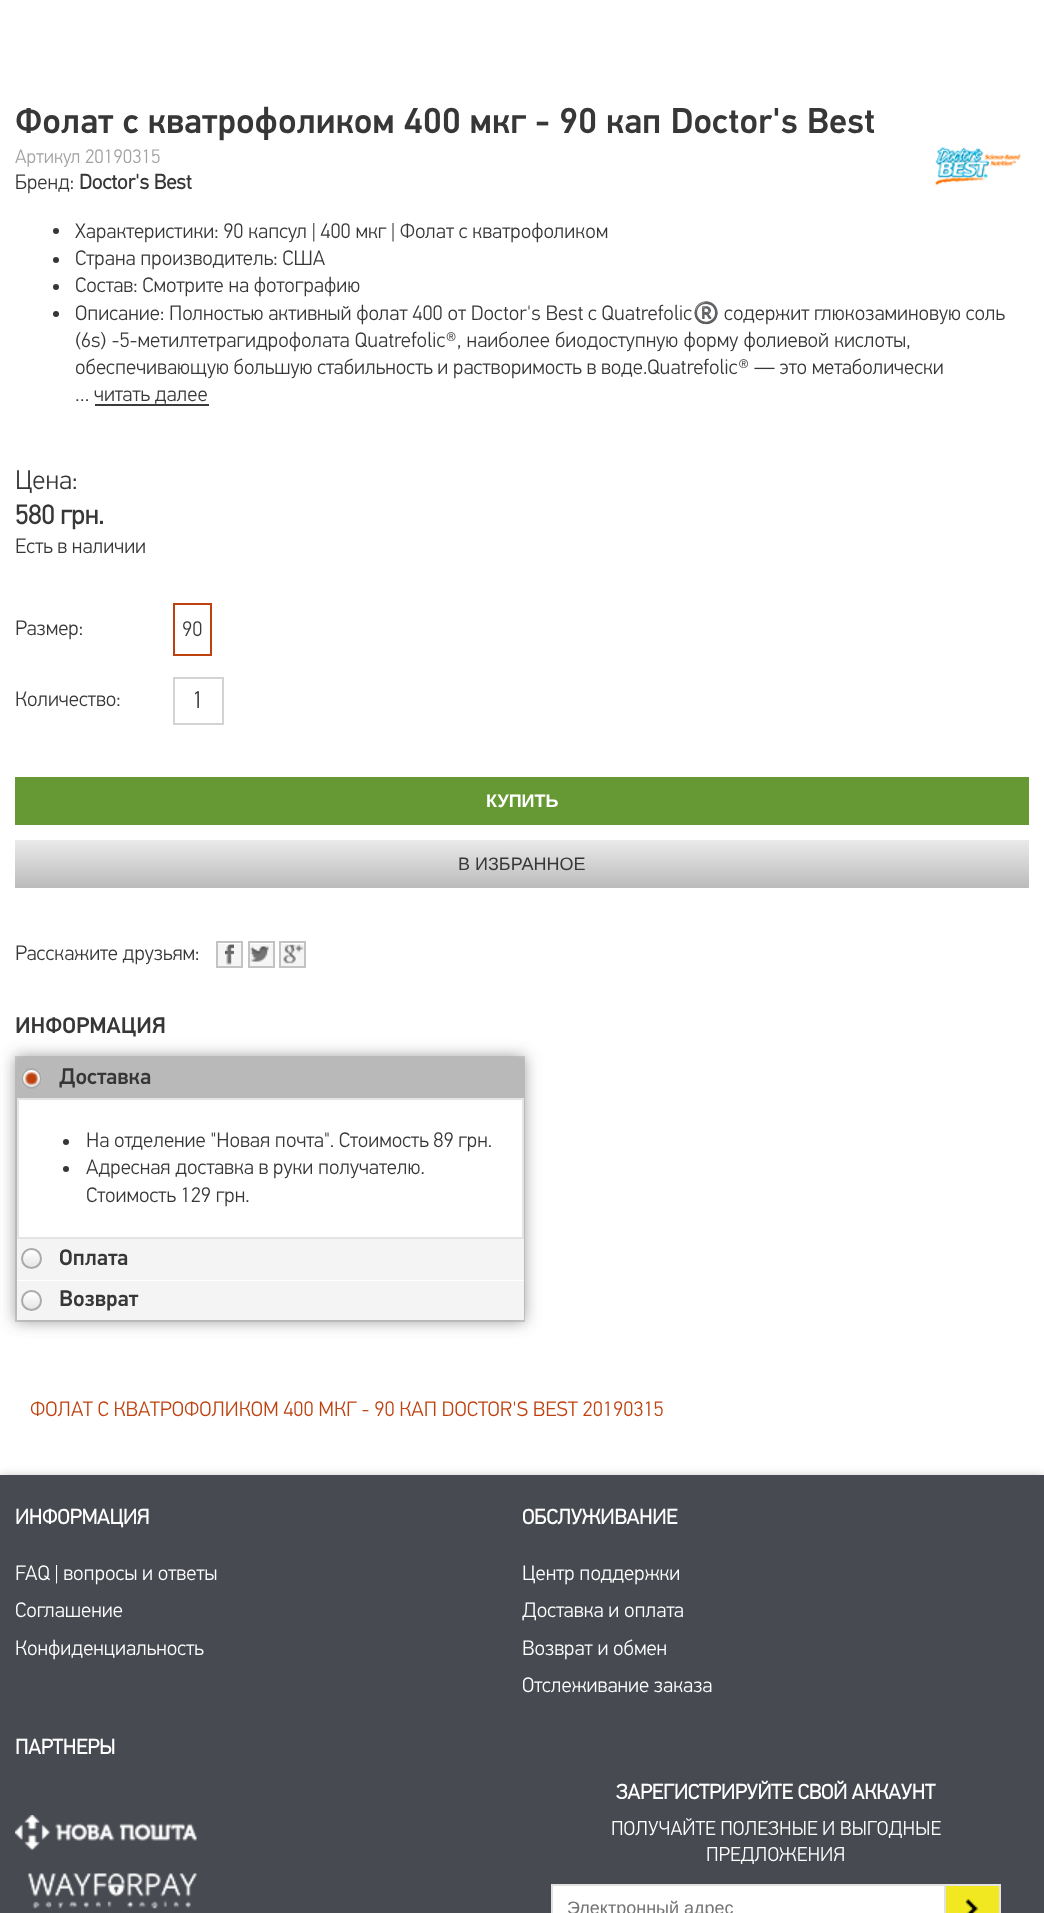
<?xml version="1.0" encoding="UTF-8"?>
<svg xmlns="http://www.w3.org/2000/svg" width="1044" height="1913">
    <defs>
        <linearGradient id="g1" gradientUnits="userSpaceOnUse" x1="522" y1="840" x2="522" y2="888"><stop offset="0" stop-color="#EAEAEA"/><stop offset="1" stop-color="#BBBBBB"/></linearGradient>
        <filter id="blur1" x="-50%" y="-200%" width="200%" height="500%"><feGaussianBlur stdDeviation="7.5"/></filter>
        <clipPath id="clip1"><rect x="21" y="1068" width="21" height="21" rx="10.5"/></clipPath>
        <linearGradient id="g2" gradientUnits="userSpaceOnUse" x1="32" y1="1070" x2="32" y2="1088"><stop offset="0" stop-color="#FFFFFF"/><stop offset="1" stop-color="#E4E4E4"/></linearGradient>
        <clipPath id="clip2"><rect x="21" y="1248" width="21" height="21" rx="10.5"/></clipPath>
        <linearGradient id="g3" gradientUnits="userSpaceOnUse" x1="32" y1="1250" x2="32" y2="1268"><stop offset="0" stop-color="#FFFFFF"/><stop offset="1" stop-color="#E4E4E4"/></linearGradient>
        <clipPath id="clip3"><rect x="21" y="1290" width="21" height="21" rx="10.5"/></clipPath>
        <linearGradient id="g4" gradientUnits="userSpaceOnUse" x1="32" y1="1292" x2="32" y2="1310"><stop offset="0" stop-color="#FFFFFF"/><stop offset="1" stop-color="#E4E4E4"/></linearGradient>
        <filter id="blur2" x="-50%" y="-200%" width="200%" height="500%"><feGaussianBlur stdDeviation="6"/></filter>
    </defs>
    <rect width="100%" height="100%" fill="#FFFFFF"/>
    <text x="15" y="133" font-family="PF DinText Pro" font-size="36" font-weight="500" fill="#373737">Фолат с кватрофоликом 400 мкг - 90 кап Doctor's Best</text>
    <text x="15" y="163" font-family="PF DinText Pro" font-size="19.5" font-weight="300" fill="#A2A2A2">Артикул 20190315</text>
    <image x="934" y="147" width="87" height="39" href="img_01.png"/>
    <text x="15" y="189" font-family="PF DinText Pro" font-size="21" font-weight="300" fill="#373737">Бренд:</text>
    <text x="79" y="189" font-family="PF DinText Pro" font-size="21" font-weight="700" fill="#373737">Doctor's Best</text>
    <circle cx="56" cy="231" r="3" fill="#373737"/>
    <text x="75" y="238" font-family="PF DinText Pro" font-size="21" font-weight="300" fill="#373737">Характеристики: 90 капсул | 400 мкг | Фолат с кватрофоликом</text>
    <circle cx="56" cy="260" r="3" fill="#373737"/>
    <text x="75" y="265" font-family="PF DinText Pro" font-size="21" font-weight="300" fill="#373737">Страна производитель: США</text>
    <circle cx="56" cy="287" r="3" fill="#373737"/>
    <text x="75" y="292" font-family="PF DinText Pro" font-size="21" font-weight="300" fill="#373737">Состав: Смотрите на фотографию</text>
    <circle cx="56" cy="314" r="3" fill="#373737"/>
    <text x="75" y="320" font-family="PF DinText Pro" font-size="21" font-weight="300" fill="#373737">Описание: Полностью активный фолат 400 от Doctor's Best с Quatrefolic</text>
    <text x="693" y="320" font-family="Noto Color Emoji" font-size="21" fill="#373737">®️</text>
    <text x="724" y="320" font-family="PF DinText Pro" font-size="21" font-weight="300" fill="#373737">содержит глюкозаминовую соль</text>
    <text font-family="PF DinText Pro" font-size="21" font-weight="300" fill="#373737">
        <tspan x="75" y="347" word-spacing="0.5">(6s) -5-метилтетрагидрофолата Quatrefolic®, наиболее биодоступную форму фолиевой кислоты,</tspan>
        <tspan x="75" y="374">обеспечивающую большую стабильность и растворимость в воде.Quatrefolic® — это метаболически</tspan>
        <tspan x="75" y="401">…</tspan>
    </text>
    <text x="94" y="401" font-family="PF DinText Pro" font-size="21" font-weight="300" fill="#373737">читать далее</text>
    <rect x="95" y="404" width="114" height="2" fill="#3B3B3B"/>
    <text x="15" y="489" font-family="PF DinText Pro" font-size="27" font-weight="300" fill="#373737">Цена:</text>
    <text x="15" y="524" font-family="PF DinText Pro" font-size="27" font-weight="700" fill="#373737">580 грн.</text>
    <text x="15" y="553" font-family="PF DinText Pro" font-size="21" font-weight="300" fill="#373737">Есть в наличии</text>
    <text x="15" y="635" font-family="PF DinText Pro" font-size="21" font-weight="300" fill="#373737">Размер:</text>
    <rect x="174" y="604" width="37" height="51" fill="none" stroke="#BE4210" stroke-width="2"/>
    <text x="182" y="636" font-family="PF DinText Pro" font-size="21" font-weight="300" fill="#373737">90</text>
    <text x="15" y="706" font-family="PF DinText Pro" font-size="21" font-weight="300" fill="#373737">Количество:</text>
    <rect x="174" y="678" width="49" height="46" fill="none" stroke="#D3D3D3" stroke-width="2"/>
    <text x="192" y="708" font-family="PF DinText Pro" font-size="24" font-weight="300" fill="#373737">1</text>
    <rect x="15" y="777" width="1014" height="48" fill="#669933"/>
    <text x="486" y="807" font-family="Liberation Sans" font-size="18" font-weight="700" fill="#FFFFFF">КУПИТЬ</text>
    <rect x="15" y="840" width="1014" height="48" fill="url(#g1)"/>
    <text x="458" y="870" font-family="Liberation Sans" font-size="18" fill="#373737">В ИЗБРАННОЕ</text>
    <text x="15" y="960" font-family="PF DinText Pro" font-size="21" font-weight="300" fill="#373737">Расскажите друзьям:</text>
    <rect x="218" y="944" width="23" height="22" fill="#F5F5F5"/>
    <image x="225" y="944" width="9" height="21" href="img_02.png"/>
    <rect x="217" y="942" width="25" height="25" fill="none" stroke="#C3C3C3" stroke-width="2"/>
    <rect x="250" y="944" width="23" height="22" fill="#F5F5F5"/>
    <image x="250" y="946" width="19" height="16" href="img_03.png"/>
    <rect x="249" y="942" width="25" height="25" fill="none" stroke="#C3C3C3" stroke-width="2"/>
    <rect x="281" y="944" width="23" height="22" fill="#F5F5F5"/>
    <image x="283" y="944" width="21" height="20" href="img_04.png"/>
    <rect x="280" y="942" width="25" height="25" fill="none" stroke="#C3C3C3" stroke-width="2"/>
    <rect x="15" y="1056" width="510" height="266" fill="#666666" fill-opacity="0.6" filter="url(#blur1)"/>
    <text x="15" y="1033" font-family="PF DinText Pro" font-size="22.5" font-weight="500" fill="#373737">ИНФОРМАЦИЯ</text>
    <rect x="16" y="1057" width="508" height="264" fill="none" stroke="#ABABAB" stroke-opacity="0.6" stroke-width="2"/>
    <rect x="17" y="1058" width="507" height="40" fill="#B9B9B9"/>
    <g clip-path="url(#clip1)">
        <rect x="21" y="1070" width="21" height="18" fill="url(#g2)"/>
    </g>
    <circle cx="31.5" cy="1078.5" r="9.5" fill="none" stroke="#AAAAAA" stroke-width="2"/>
    <image x="25" y="1072" width="13" height="13" href="img_05.png"/>
    <text x="59" y="1084" font-family="PF DinText Pro" font-size="22.5" font-weight="500" fill="#373737">Доставка</text>
    <rect x="18" y="1099" width="505" height="139" fill="#FFFFFF" stroke="#E4E4E4" stroke-width="2"/>
    <circle cx="66" cy="1142" r="3" fill="#373737"/>
    <text x="86" y="1147" font-family="PF DinText Pro" font-size="21" font-weight="300" fill="#373737">На отделение "Новая почта". Стоимость 89 грн.</text>
    <circle cx="66" cy="1169" r="3" fill="#373737"/>
    <text font-family="PF DinText Pro" font-size="21" font-weight="300" fill="#373737">
        <tspan x="86" y="1174">Адресная доставка в руки получателю.</tspan>
        <tspan x="86" y="1202">Стоимость 129 грн.</tspan>
    </text>
    <rect x="17" y="1239" width="507" height="41" fill="#F4F4F4"/>
    <g clip-path="url(#clip2)">
        <rect x="21" y="1250" width="21" height="18" fill="url(#g3)"/>
    </g>
    <circle cx="31.5" cy="1258.5" r="9.5" fill="none" stroke="#AAAAAA" stroke-width="2"/>
    <text x="59" y="1265" font-family="PF DinText Pro" font-size="22.5" font-weight="500" fill="#373737">Оплата</text>
    <rect x="17" y="1280" width="507" height="1" fill="#FFFFFF"/>
    <rect x="17" y="1281" width="507" height="39" fill="#F4F4F4"/>
    <g clip-path="url(#clip3)">
        <rect x="21" y="1292" width="21" height="18" fill="url(#g4)"/>
    </g>
    <circle cx="31.5" cy="1300.5" r="9.5" fill="none" stroke="#AAAAAA" stroke-width="2"/>
    <text x="59" y="1306" font-family="PF DinText Pro" font-size="22.5" font-weight="500" fill="#373737">Возврат</text>
    <text x="30" y="1416" font-family="PF DinText Pro" font-size="21" font-weight="300" fill="#BE4210">ФОЛАТ С КВАТРОФОЛИКОМ 400 МКГ - 90 КАП DOCTOR'S BEST 20190315</text>
    <rect x="0" y="1479" width="1044" height="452" fill="#000000" fill-opacity="0.45" filter="url(#blur2)"/>
    <rect x="0" y="1475" width="1044" height="438" fill="#474A51"/>
    <text x="15" y="1524" font-family="PF DinText Pro" font-size="21" font-weight="700" fill="#FFFFFF">ИНФОРМАЦИЯ</text>
    <text font-family="PF DinText Pro" font-size="21" font-weight="300" fill="#FFFFFF">
        <tspan x="15" y="1580">FAQ | вопросы и ответы</tspan>
        <tspan x="15" y="1617">Соглашение</tspan>
        <tspan x="15" y="1655">Конфиденциальность</tspan>
    </text>
    <text x="522" y="1524" font-family="PF DinText Pro" font-size="21" font-weight="700" fill="#FFFFFF">ОБСЛУЖИВАНИЕ</text>
    <text font-family="PF DinText Pro" font-size="21" font-weight="300" fill="#FFFFFF">
        <tspan x="522" y="1580">Центр поддержки</tspan>
        <tspan x="522" y="1617">Доставка и оплата</tspan>
        <tspan x="522" y="1655">Возврат и обмен</tspan>
        <tspan x="522" y="1692">Отслеживание заказа</tspan>
    </text>
    <text x="15" y="1754" font-family="PF DinText Pro" font-size="21" font-weight="700" fill="#FFFFFF">ПАРТНЕРЫ</text>
    <image x="15" y="1815" width="182" height="35" href="img_06.png"/>
    <image x="28" y="1873" width="169" height="36" href="img_07.png"/>
    <text x="616" y="1799" font-family="PF DinText Pro" font-size="21" font-weight="700" fill="#FFFFFF">ЗАРЕГИСТРИРУЙТЕ СВОЙ АККАУНТ</text>
    <text x="611" y="1835" font-family="PF DinText Pro" font-size="20" font-weight="300" fill="#FFFFFF">ПОЛУЧАЙТЕ ПОЛЕЗНЫЕ И ВЫГОДНЫЕ</text>
    <text x="706" y="1861" font-family="PF DinText Pro" font-size="20" font-weight="300" fill="#FFFFFF">ПРЕДЛОЖЕНИЯ</text>
    <rect x="553" y="1886" width="391" height="27" fill="#FFFFFF"/>
    <rect x="552" y="1885" width="448" height="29" fill="none" stroke="#E2E2E2" stroke-width="2"/>
    <text x="567" y="1914" font-family="Liberation Sans" font-size="18" fill="#757575">Электронный адрес</text>
    <rect x="946" y="1886" width="53" height="27" fill="#F1E821"/>
    <rect x="944" y="1886" width="2" height="27" fill="#E2E2E2"/>
    <image x="965" y="1899" width="14" height="14" href="img_08.png"/>
</svg>
